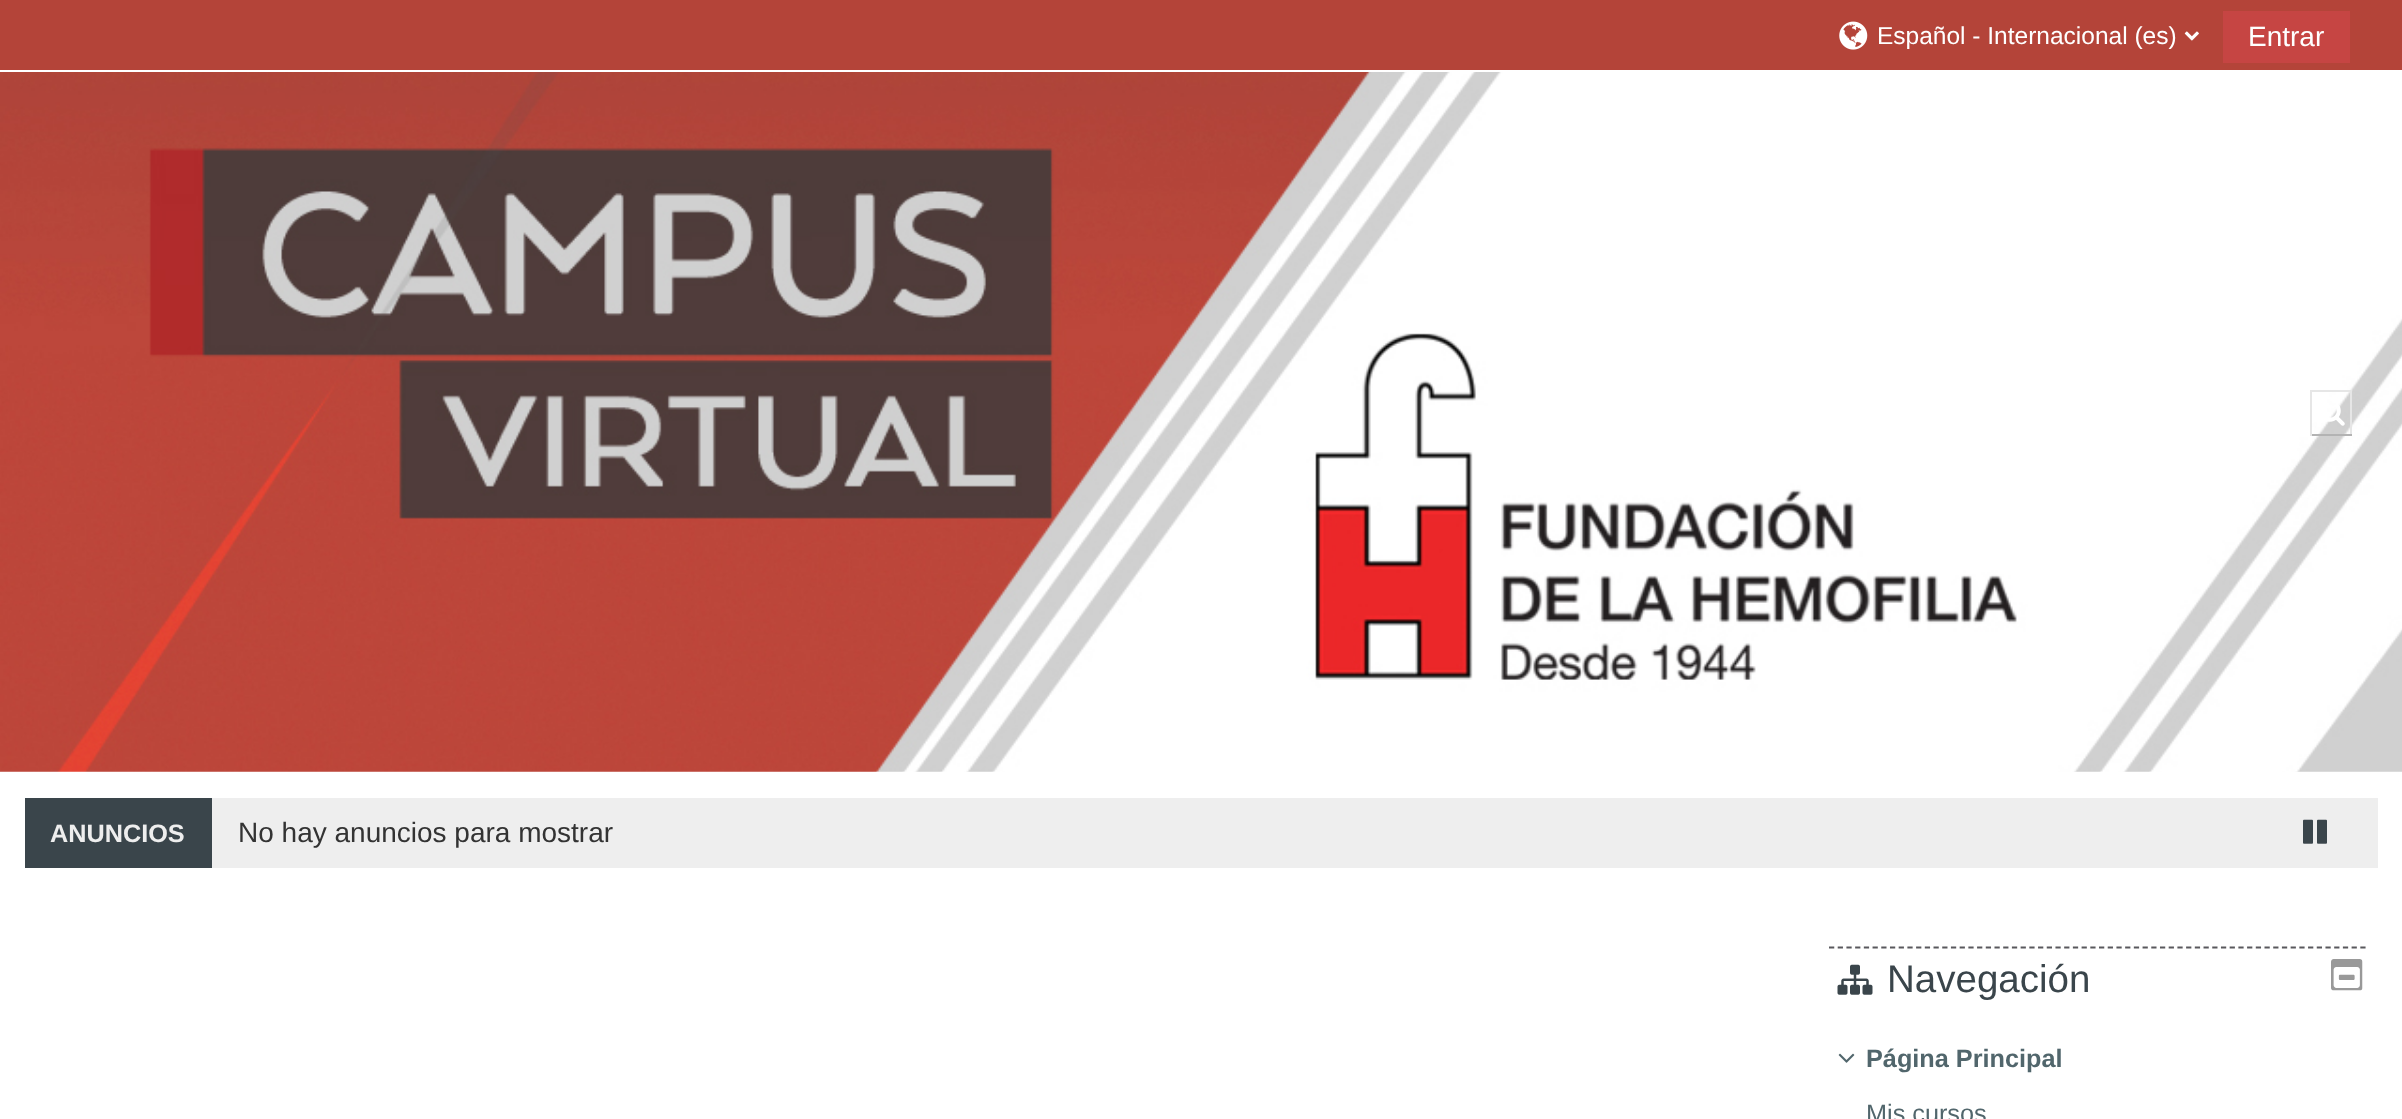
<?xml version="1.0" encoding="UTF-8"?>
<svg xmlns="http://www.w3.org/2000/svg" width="2402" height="1119">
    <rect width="100%" height="100%" fill="#FFFFFF"/>
    <image x="0" y="72" width="2402" height="700" href="img_01.png"/>
    <rect x="0" y="0" width="2402" height="70" fill="#B44439"/>
    <image x="1839" y="21" width="29" height="29" href="img_02.png"/>
    <text x="1877" y="44" font-family="Liberation Sans" font-size="24.5" fill="#FFFFFF">Español - Internacional (es)</text>
    <image x="2184" y="31" width="15" height="10" href="img_03.png"/>
    <rect x="2223" y="11" width="127" height="52" fill="#C64543"/>
    <text x="2248" y="46" font-family="Liberation Sans" font-size="28" fill="#FFFFFF">Entrar</text>
    <rect x="2310" y="390" width="42" height="2" fill="#E6E6E6"/>
    <rect x="2350" y="390" width="2" height="46" fill="#E6E6E6"/>
    <rect x="2310" y="434" width="42" height="2" fill="#B3B3B3"/>
    <rect x="2310" y="390" width="2" height="46" fill="#E6E6E6"/>
    <image x="2327" y="405" width="18" height="21" href="img_04.png"/>
    <rect x="212" y="798" width="2166" height="70" fill="#EEEEEE"/>
    <rect x="25" y="798" width="187" height="70" fill="#3A454B"/>
    <text x="50" y="842" font-family="Liberation Sans" font-size="25.25" font-weight="700" fill="#EEEEEE">ANUNCIOS</text>
    <text x="238" y="842" font-family="Liberation Sans" font-size="28" fill="#333333">No hay anuncios para mostrar</text>
    <image x="2303" y="819" width="24" height="25" href="img_05.png"/>
    <path d="M 1829 947.5 H 2366" fill="none" stroke="#59585D" stroke-width="1.8" stroke-dasharray="5.25 3.46"/>
    <image x="1837" y="964" width="36" height="31" href="img_06.png"/>
    <text x="1887" y="992" font-family="Liberation Sans" font-size="38.5" fill="#3A454B">Navegación</text>
    <image x="2331" y="959" width="32" height="32" href="img_07.png"/>
    <image x="1838" y="1053" width="17" height="10" href="img_08.png"/>
    <text x="1866" y="1067" font-family="Liberation Sans" font-size="25.25" font-weight="700" fill="#51666C">Página Principal</text>
    <text x="1866" y="1122" font-family="Liberation Sans" font-size="25.25" fill="#51666C">Mis cursos</text>
</svg>
